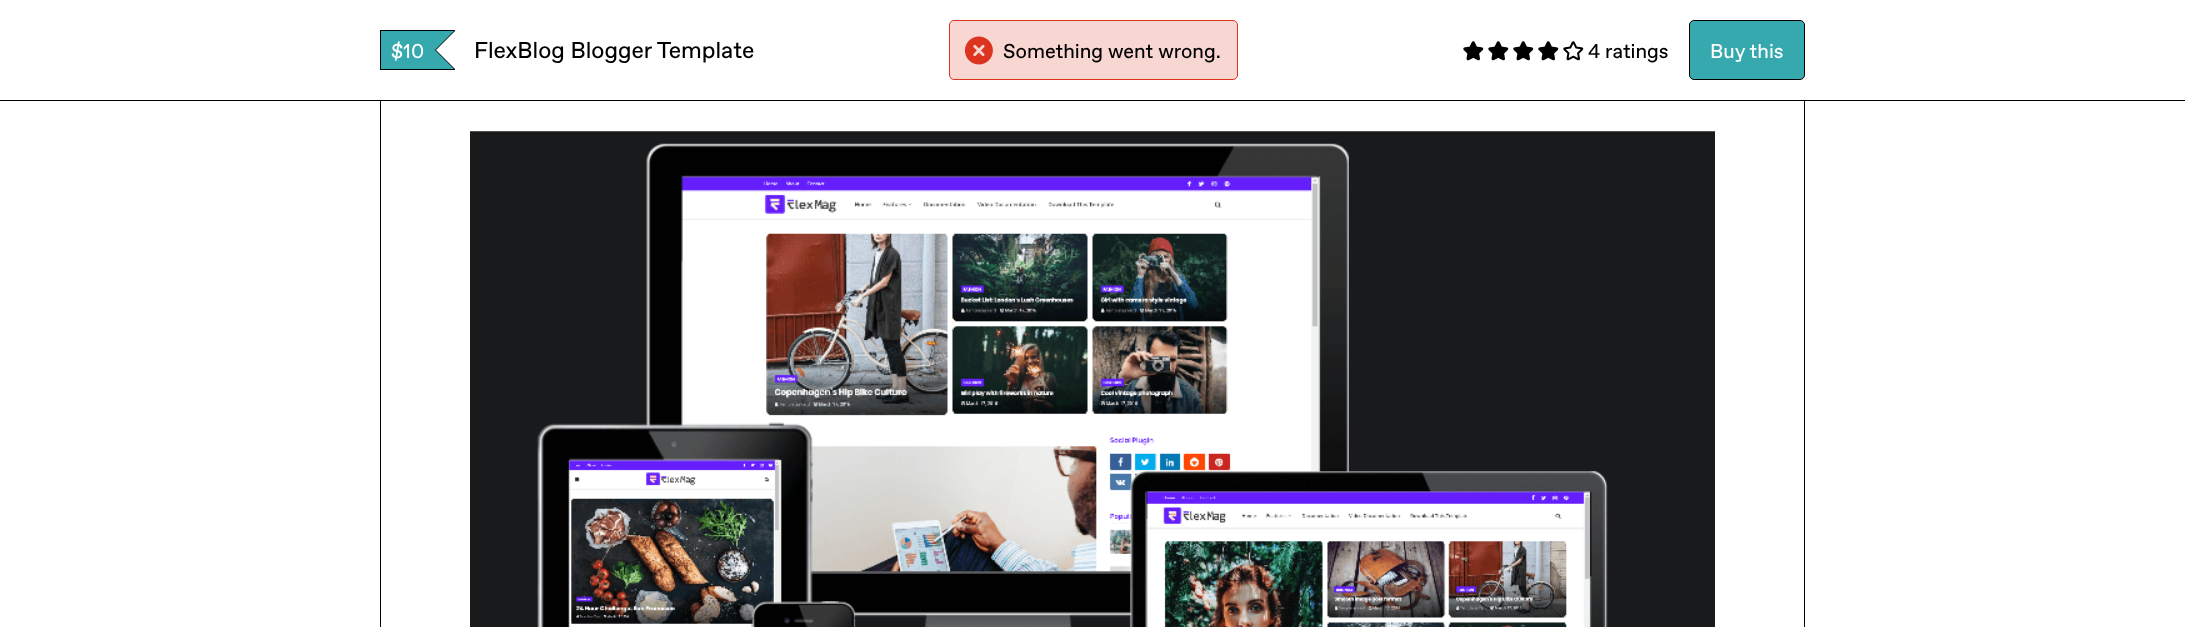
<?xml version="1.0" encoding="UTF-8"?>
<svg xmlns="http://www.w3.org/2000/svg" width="2185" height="627">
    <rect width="100%" height="100%" fill="#FFFFFF"/>
    <rect x="380.5" y="80.5" width="1424" height="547" fill="none" stroke="#000000"/>
    <rect x="0" y="100" width="2185" height="1" fill="#000000"/>
    <rect x="380" y="80" width="1425" height="20" fill="#FFFFFF"/>
    <rect x="380" y="30" width="75" height="1" fill="#000000"/>
    <rect x="380" y="69" width="75" height="1" fill="#000000"/>
    <rect x="380" y="30" width="1" height="40" fill="#000000"/>
    <rect x="381" y="31" width="54" height="38" fill="#36A9AE"/>
    <path d="M 435 31 H 455 L 436 50 Z M 455 69 H 435 L 436 50 Z" fill="#000000"/>
    <rect x="435" y="49" width="1" height="2" fill="#000000"/>
    <path d="M 434 31 H 454 L 435 50 Z M 454 69 H 434 L 435 50 Z" fill="#36A9AE"/>
    <text x="391" y="58" font-family="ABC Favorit" font-size="20" fill="#FFFFFF">$10</text>
    <text x="474" y="58" font-family="ABC Favorit" font-size="23" fill="#000000">FlexBlog Blogger Template</text>
    <image x="1463" y="41" width="21" height="20" href="img_01.png"/>
    <image x="1488" y="41" width="21" height="20" href="img_01.png"/>
    <image x="1513" y="41" width="21" height="20" href="img_01.png"/>
    <image x="1538" y="41" width="21" height="20" href="img_01.png"/>
    <image x="1563" y="41" width="21" height="20" href="img_02.png"/>
    <text x="1588" y="58" font-family="ABC Favorit" font-size="20" fill="#000000">4 ratings</text>
    <rect x="1689.5" y="20.5" width="115" height="59" rx="4.5" fill="#36A9AE" stroke="#000000"/>
    <text x="1710" y="58" font-family="ABC Favorit" font-size="20" fill="#FFFFFF">Buy this</text>
    <image x="470" y="131" width="1245" height="496" href="img_03.png"/>
    <rect x="949.5" y="20.5" width="288" height="59" rx="4.5" fill="#F8D6D2" stroke="#DC341E"/>
    <image x="964" y="36" width="29" height="29" href="img_04.png"/>
    <text x="1003" y="58" font-family="ABC Favorit" font-size="20" fill="#000000">Something went wrong.</text>
</svg>
